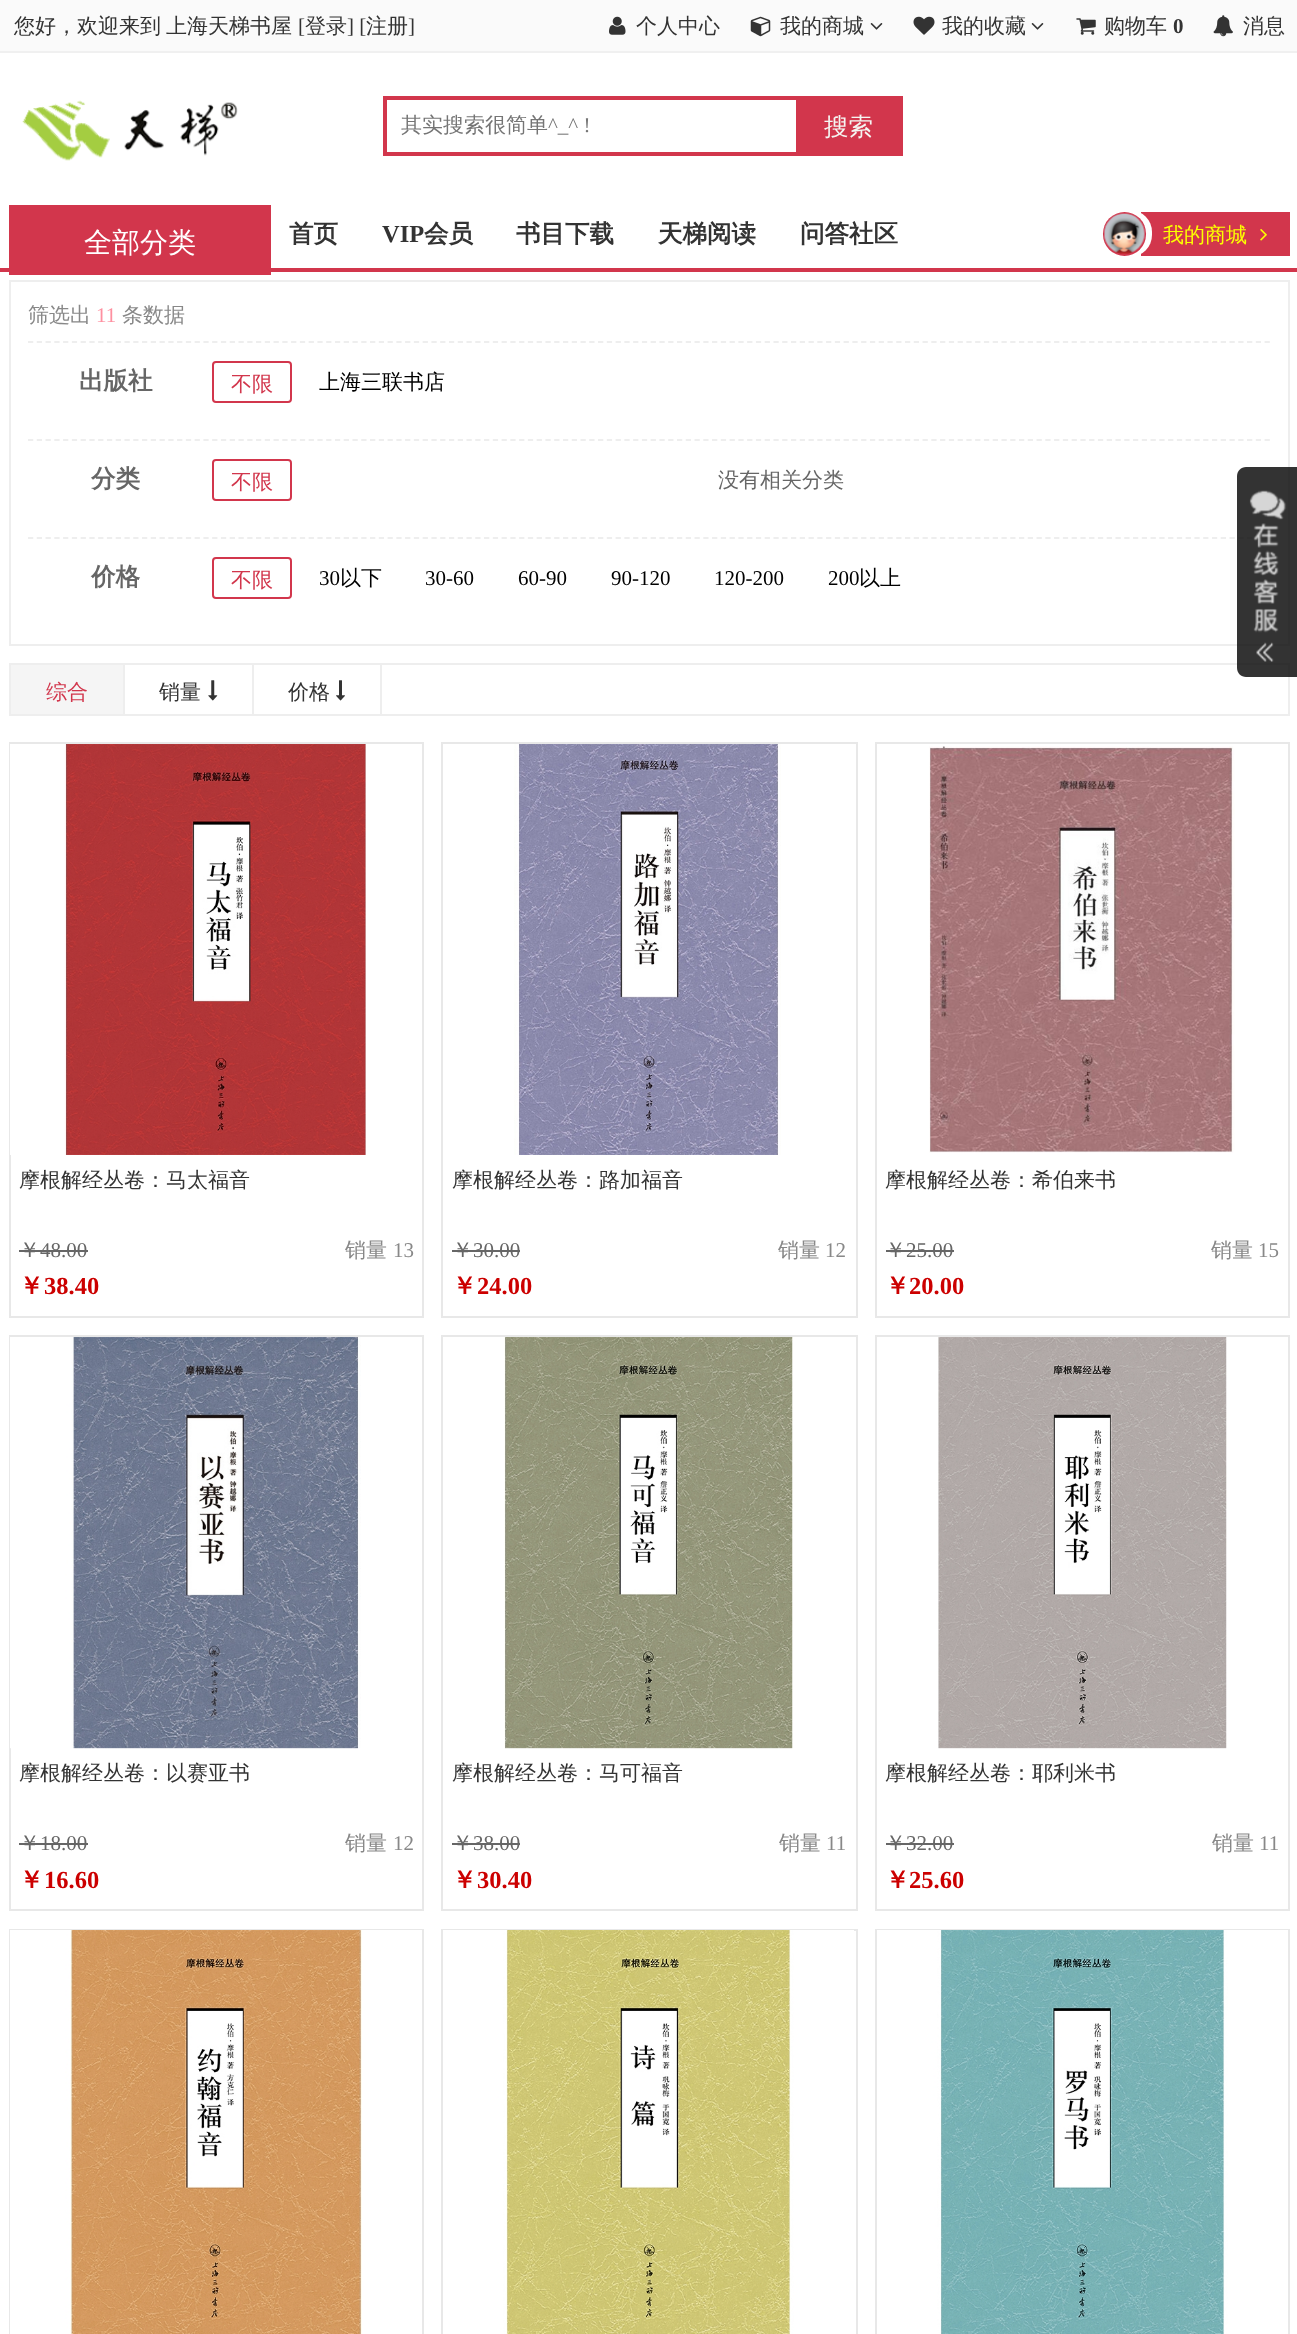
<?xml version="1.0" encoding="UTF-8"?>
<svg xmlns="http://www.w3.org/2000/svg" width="1297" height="2334">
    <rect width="100%" height="100%" fill="#FFFFFF"/>
    <rect x="0" y="0" width="1297" height="51" fill="#FAFAFA"/>
    <rect x="0" y="51" width="1297" height="2" fill="#F0F0F0"/>
    <text x="14" y="33" font-family="WenQuanYi Zen Hei" font-size="21" font-weight="500" fill="#333333">您好，欢迎来到</text>
    <text x="166" y="33" font-family="WenQuanYi Zen Hei" font-size="21" font-weight="500" fill="#333333">上海天梯书屋</text>
    <text x="298" y="33" font-family="Liberation Serif" font-size="21" fill="#333333">[</text>
    <text x="305" y="33" font-family="WenQuanYi Zen Hei" font-size="21" font-weight="500" fill="#333333">登录</text>
    <text x="347" y="33" font-family="Liberation Serif" font-size="21" fill="#333333">] [</text>
    <text x="366" y="33" font-family="WenQuanYi Zen Hei" font-size="21" font-weight="500" fill="#333333">注册</text>
    <text x="408" y="33" font-family="Liberation Serif" font-size="21" fill="#333333">]</text>
    <image x="609" y="16" width="17" height="19" href="img_01.png"/>
    <text x="636" y="33" font-family="WenQuanYi Zen Hei" font-size="21" font-weight="500" fill="#333333">个人中心</text>
    <image x="750" y="16" width="21" height="21" href="img_02.png"/>
    <text x="780" y="33" font-family="WenQuanYi Zen Hei" font-size="21" font-weight="500" fill="#333333">我的商城</text>
    <image x="870" y="23" width="13" height="7" href="img_03.png"/>
    <image x="913" y="16" width="22" height="19" href="img_04.png"/>
    <text x="942" y="33" font-family="WenQuanYi Zen Hei" font-size="21" font-weight="500" fill="#333333">我的收藏</text>
    <image x="1031" y="23" width="13" height="7" href="img_03.png"/>
    <image x="1076" y="18" width="20" height="17" href="img_05.png"/>
    <text x="1104" y="33" font-family="WenQuanYi Zen Hei" font-size="21" font-weight="500" fill="#333333">购物车</text>
    <text x="1173" y="33" font-family="Liberation Serif" font-size="21" font-weight="700" fill="#333333">0</text>
    <image x="1213" y="15" width="20" height="22" href="img_06.png"/>
    <text x="1243" y="33" font-family="WenQuanYi Zen Hei" font-size="21" font-weight="500" fill="#333333">消息</text>
    <image x="22" y="100" width="216" height="61" href="img_07.png"/>
    <rect x="385" y="98" width="516" height="56" fill="none" stroke="#D2364C" stroke-width="4"/>
    <text x="401" y="132" font-family="WenQuanYi Zen Hei" font-size="21" font-weight="500" fill="#757575">其实搜索很简单</text>
    <text x="548" y="132" font-family="Liberation Serif" font-size="21" fill="#757575">^_^ !</text>
    <rect x="796" y="100" width="103" height="52" fill="#D2364C"/>
    <text x="824" y="135" font-family="WenQuanYi Zen Hei" font-size="24.5" font-weight="500" fill="#F5F5F2">搜索</text>
    <rect x="0" y="268" width="1297" height="4" fill="#D2364C"/>
    <rect x="9" y="205" width="262" height="70" fill="#D2364C"/>
    <text x="84" y="252" font-family="WenQuanYi Zen Hei" font-size="28" font-weight="500" fill="#FFFFFF">全部分类</text>
    <text x="289" y="242" font-family="WenQuanYi Zen Hei" font-size="24.5" font-weight="700" fill="#333333">首页</text>
    <text x="382" y="242" font-family="Liberation Serif" font-size="24.5" font-weight="700" fill="#333333">VIP</text>
    <text x="424" y="242" font-family="WenQuanYi Zen Hei" font-size="24.5" font-weight="700" fill="#333333">会员</text>
    <text x="516" y="242" font-family="WenQuanYi Zen Hei" font-size="24.5" font-weight="700" fill="#333333">书目下载</text>
    <text x="658" y="242" font-family="WenQuanYi Zen Hei" font-size="24.5" font-weight="700" fill="#333333">天梯阅读</text>
    <text x="800" y="242" font-family="WenQuanYi Zen Hei" font-size="24.5" font-weight="700" fill="#333333">问答社区</text>
    <rect x="1141" y="212" width="149" height="44" fill="#D2364C"/>
    <rect x="1108" y="210" width="44" height="47" rx="22" fill="#FFFFFF"/>
    <rect x="1103" y="212" width="43" height="44" rx="21.5" fill="#D2364C"/>
    <image x="1104" y="213" width="41" height="41" href="img_08.png"/>
    <text x="1163" y="242" font-family="WenQuanYi Zen Hei" font-size="21" font-weight="500" fill="#FCFF00">我的商城</text>
    <image x="1260" y="229" width="7" height="12" href="img_09.png"/>
    <rect x="10" y="281" width="1279" height="364" fill="none" stroke="#EEEEEE" stroke-width="2"/>
    <text x="28" y="322" font-family="WenQuanYi Zen Hei" font-size="21" font-weight="500" fill="#888888">筛选出</text>
    <text x="96" y="322" font-family="Liberation Serif" font-size="21" fill="#FE90A0">11</text>
    <text x="122" y="322" font-family="WenQuanYi Zen Hei" font-size="21" font-weight="500" fill="#888888">条数据</text>
    <path d="M 28 342 H 1270.5" fill="none" stroke="#EEEEEE" stroke-width="1.8" stroke-dasharray="5.25 3.52"/>
    <text x="79" y="389" font-family="WenQuanYi Zen Hei" font-size="24.5" font-weight="700" fill="#666666">出版社</text>
    <rect x="213" y="362" width="78" height="40" rx="3" fill="none" stroke="#D2364C" stroke-width="2"/>
    <text x="231" y="391" font-family="WenQuanYi Zen Hei" font-size="21" font-weight="500" fill="#D2364C">不限</text>
    <text x="319" y="389" font-family="WenQuanYi Zen Hei" font-size="21" font-weight="500" fill="#000000">上海三联书店</text>
    <path d="M 28 440 H 1270.5" fill="none" stroke="#EEEEEE" stroke-width="1.8" stroke-dasharray="5.25 3.52"/>
    <text x="91" y="487" font-family="WenQuanYi Zen Hei" font-size="24.5" font-weight="700" fill="#666666">分类</text>
    <rect x="213" y="460" width="78" height="40" rx="3" fill="none" stroke="#D2364C" stroke-width="2"/>
    <text x="231" y="489" font-family="WenQuanYi Zen Hei" font-size="21" font-weight="500" fill="#D2364C">不限</text>
    <text x="718" y="487" font-family="WenQuanYi Zen Hei" font-size="21" font-weight="500" fill="#666666">没有相关分类</text>
    <path d="M 28 538 H 1270.5" fill="none" stroke="#EEEEEE" stroke-width="1.8" stroke-dasharray="5.25 3.52"/>
    <text x="91" y="585" font-family="WenQuanYi Zen Hei" font-size="24.5" font-weight="700" fill="#666666">价格</text>
    <rect x="213" y="558" width="78" height="40" rx="3" fill="none" stroke="#D2364C" stroke-width="2"/>
    <text x="231" y="587" font-family="WenQuanYi Zen Hei" font-size="21" font-weight="500" fill="#D2364C">不限</text>
    <text x="319" y="585" font-family="Liberation Serif" font-size="21" fill="#000000">30</text>
    <text x="340" y="585" font-family="WenQuanYi Zen Hei" font-size="21" font-weight="500" fill="#000000">以下</text>
    <text x="425" y="585" font-family="Liberation Serif" font-size="21" fill="#000000">30-60</text>
    <text x="518" y="585" font-family="Liberation Serif" font-size="21" fill="#000000">60-90</text>
    <text x="611" y="585" font-family="Liberation Serif" font-size="21" fill="#000000">90-120</text>
    <text x="714" y="585" font-family="Liberation Serif" font-size="21" fill="#000000">120-200</text>
    <text x="828" y="585" font-family="Liberation Serif" font-size="21" fill="#000000">200</text>
    <text x="859" y="585" font-family="WenQuanYi Zen Hei" font-size="21" font-weight="500" fill="#000000">以上</text>
    <rect x="10" y="664" width="1279" height="51" fill="none" stroke="#EEEEEE" stroke-width="2"/>
    <rect x="11" y="665" width="112" height="49" fill="#F5F5F5"/>
    <rect x="123" y="665" width="2" height="49" fill="#EEEEEE"/>
    <text x="46" y="699" font-family="WenQuanYi Zen Hei" font-size="21" font-weight="500" fill="#D2364C">综合</text>
    <rect x="252" y="665" width="2" height="49" fill="#EEEEEE"/>
    <text x="159" y="699" font-family="WenQuanYi Zen Hei" font-size="21" font-weight="500" fill="#333333">销量</text>
    <image x="208" y="680" width="10" height="21" href="img_10.png"/>
    <rect x="380" y="665" width="2" height="49" fill="#EEEEEE"/>
    <text x="288" y="699" font-family="WenQuanYi Zen Hei" font-size="21" font-weight="500" fill="#333333">价格</text>
    <image x="336" y="680" width="9" height="21" href="img_11.png"/>
    <rect x="10" y="743" width="413" height="574" fill="none" stroke="#E8E8E8" stroke-width="2"/>
    <image x="10" y="744" width="356" height="411" href="img_12.png"/>
    <text x="19" y="1187" font-family="WenQuanYi Zen Hei" font-size="21" font-weight="500" fill="#333333">摩根解经丛卷：马太福音</text>
    <text x="19" y="1257" font-family="WenQuanYi Zen Hei" font-size="21" font-weight="500" fill="#666666">￥</text>
    <text x="40" y="1257" font-family="Liberation Serif" font-size="21" fill="#666666">48.00</text>
    <rect x="19" y="1250" width="69" height="2" fill="#666666"/>
    <text x="345" y="1257" font-family="WenQuanYi Zen Hei" font-size="21" font-weight="500" fill="#888888">销量</text>
    <text x="393" y="1257" font-family="Liberation Serif" font-size="21" fill="#888888">13</text>
    <text x="19" y="1294" font-family="WenQuanYi Zen Hei" font-size="24.5" font-weight="700" fill="#CC0000">￥</text>
    <text x="44" y="1294" font-family="Liberation Serif" font-size="24.5" font-weight="700" fill="#CC0000">38.40</text>
    <rect x="442" y="743" width="415" height="574" fill="none" stroke="#E8E8E8" stroke-width="2"/>
    <image x="514" y="744" width="267" height="411" href="img_13.png"/>
    <text x="452" y="1187" font-family="WenQuanYi Zen Hei" font-size="21" font-weight="500" fill="#333333">摩根解经丛卷：路加福音</text>
    <text x="452" y="1257" font-family="WenQuanYi Zen Hei" font-size="21" font-weight="500" fill="#666666">￥</text>
    <text x="473" y="1257" font-family="Liberation Serif" font-size="21" fill="#666666">30.00</text>
    <rect x="452" y="1250" width="68" height="2" fill="#666666"/>
    <text x="778" y="1257" font-family="WenQuanYi Zen Hei" font-size="21" font-weight="500" fill="#888888">销量</text>
    <text x="825" y="1257" font-family="Liberation Serif" font-size="21" fill="#888888">12</text>
    <text x="452" y="1294" font-family="WenQuanYi Zen Hei" font-size="24.5" font-weight="700" fill="#CC0000">￥</text>
    <text x="477" y="1294" font-family="Liberation Serif" font-size="24.5" font-weight="700" fill="#CC0000">24.00</text>
    <rect x="876" y="743" width="413" height="574" fill="none" stroke="#E8E8E8" stroke-width="2"/>
    <image x="929" y="746" width="306" height="407" href="img_14.png"/>
    <text x="885" y="1187" font-family="WenQuanYi Zen Hei" font-size="21" font-weight="500" fill="#333333">摩根解经丛卷：希伯来书</text>
    <text x="885" y="1257" font-family="WenQuanYi Zen Hei" font-size="21" font-weight="500" fill="#666666">￥</text>
    <text x="906" y="1257" font-family="Liberation Serif" font-size="21" fill="#666666">25.00</text>
    <rect x="886" y="1250" width="68" height="2" fill="#666666"/>
    <text x="1211" y="1257" font-family="WenQuanYi Zen Hei" font-size="21" font-weight="500" fill="#888888">销量</text>
    <text x="1258" y="1257" font-family="Liberation Serif" font-size="21" fill="#888888">15</text>
    <text x="885" y="1294" font-family="WenQuanYi Zen Hei" font-size="24.5" font-weight="700" fill="#CC0000">￥</text>
    <text x="909" y="1294" font-family="Liberation Serif" font-size="24.5" font-weight="700" fill="#CC0000">20.00</text>
    <rect x="10" y="1336" width="413" height="574" fill="none" stroke="#E8E8E8" stroke-width="2"/>
    <image x="10" y="1337" width="351" height="412" href="img_15.png"/>
    <text x="19" y="1780" font-family="WenQuanYi Zen Hei" font-size="21" font-weight="500" fill="#333333">摩根解经丛卷：以赛亚书</text>
    <text x="19" y="1850" font-family="WenQuanYi Zen Hei" font-size="21" font-weight="500" fill="#666666">￥</text>
    <text x="40" y="1850" font-family="Liberation Serif" font-size="21" fill="#666666">18.00</text>
    <rect x="19" y="1843" width="69" height="2" fill="#666666"/>
    <text x="345" y="1850" font-family="WenQuanYi Zen Hei" font-size="21" font-weight="500" fill="#888888">销量</text>
    <text x="393" y="1850" font-family="Liberation Serif" font-size="21" fill="#888888">12</text>
    <text x="19" y="1888" font-family="WenQuanYi Zen Hei" font-size="24.5" font-weight="700" fill="#CC0000">￥</text>
    <text x="44" y="1888" font-family="Liberation Serif" font-size="24.5" font-weight="700" fill="#CC0000">16.60</text>
    <rect x="442" y="1336" width="415" height="574" fill="none" stroke="#E8E8E8" stroke-width="2"/>
    <image x="504" y="1337" width="289" height="412" href="img_16.png"/>
    <text x="452" y="1780" font-family="WenQuanYi Zen Hei" font-size="21" font-weight="500" fill="#333333">摩根解经丛卷：马可福音</text>
    <text x="452" y="1850" font-family="WenQuanYi Zen Hei" font-size="21" font-weight="500" fill="#666666">￥</text>
    <text x="473" y="1850" font-family="Liberation Serif" font-size="21" fill="#666666">38.00</text>
    <rect x="452" y="1843" width="68" height="2" fill="#666666"/>
    <text x="779" y="1850" font-family="WenQuanYi Zen Hei" font-size="21" font-weight="500" fill="#888888">销量</text>
    <text x="826" y="1850" font-family="Liberation Serif" font-size="21" fill="#888888">11</text>
    <text x="452" y="1888" font-family="WenQuanYi Zen Hei" font-size="24.5" font-weight="700" fill="#CC0000">￥</text>
    <text x="477" y="1888" font-family="Liberation Serif" font-size="24.5" font-weight="700" fill="#CC0000">30.40</text>
    <rect x="876" y="1336" width="413" height="574" fill="none" stroke="#E8E8E8" stroke-width="2"/>
    <image x="938" y="1337" width="289" height="412" href="img_17.png"/>
    <text x="885" y="1780" font-family="WenQuanYi Zen Hei" font-size="21" font-weight="500" fill="#333333">摩根解经丛卷：耶利米书</text>
    <text x="885" y="1850" font-family="WenQuanYi Zen Hei" font-size="21" font-weight="500" fill="#666666">￥</text>
    <text x="906" y="1850" font-family="Liberation Serif" font-size="21" fill="#666666">32.00</text>
    <rect x="886" y="1843" width="68" height="2" fill="#666666"/>
    <text x="1212" y="1850" font-family="WenQuanYi Zen Hei" font-size="21" font-weight="500" fill="#888888">销量</text>
    <text x="1259" y="1850" font-family="Liberation Serif" font-size="21" fill="#888888">11</text>
    <text x="885" y="1888" font-family="WenQuanYi Zen Hei" font-size="24.5" font-weight="700" fill="#CC0000">￥</text>
    <text x="909" y="1888" font-family="Liberation Serif" font-size="24.5" font-weight="700" fill="#CC0000">25.60</text>
    <rect x="10" y="1930" width="413" height="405" fill="none" stroke="#E8E8E8" stroke-width="2"/>
    <image x="10" y="1930" width="412" height="404" href="img_18.png"/>
    <rect x="442" y="1930" width="415" height="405" fill="none" stroke="#E8E8E8" stroke-width="2"/>
    <image x="443" y="1930" width="411" height="404" href="img_19.png"/>
    <rect x="876" y="1930" width="413" height="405" fill="none" stroke="#E8E8E8" stroke-width="2"/>
    <image x="877" y="1930" width="411" height="404" href="img_20.png"/>
    <path d="M 1246 467 H 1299 V 677 H 1246 C 1241 677 1237 673 1237 668 V 476 C 1237 471 1241 467 1246 467 Z" fill="#000000" fill-opacity="0.8"/>
    <image x="1249" y="490" width="38" height="172" href="img_21.png"/>
</svg>
